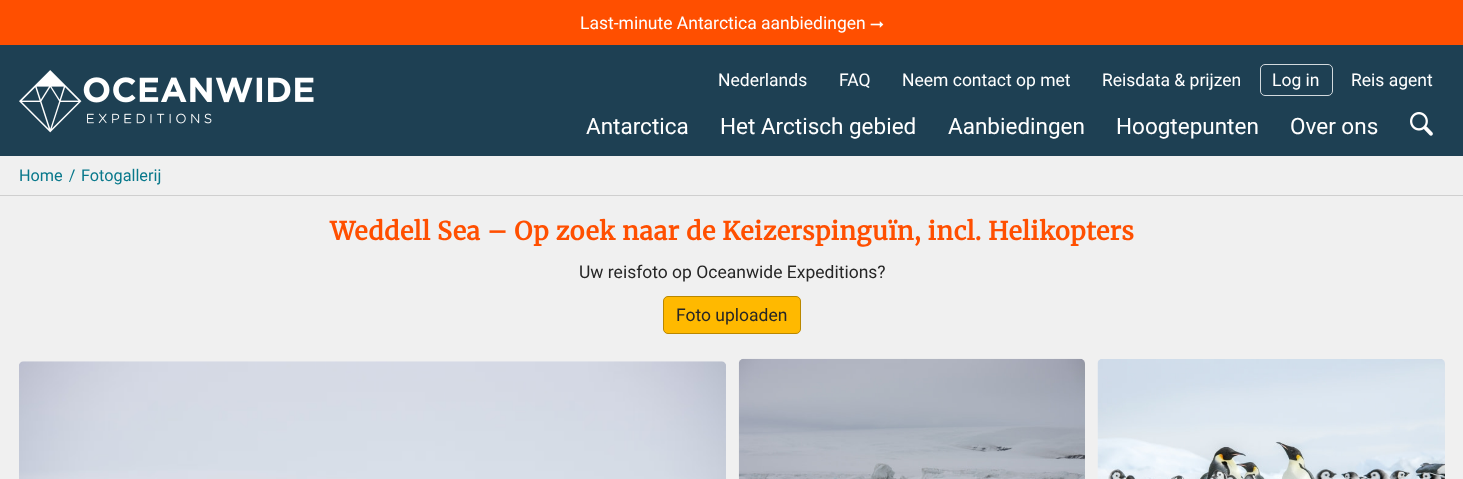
<?xml version="1.0" encoding="UTF-8"?>
<svg xmlns="http://www.w3.org/2000/svg" width="1463" height="479">
    <rect width="100%" height="100%" fill="#F0F0F0"/>
    <rect x="0" y="0" width="1463" height="45" fill="#FF4F00"/>
    <text x="580" y="29" font-family="Roboto" font-size="17.5" fill="#FFFFFF">Last-minute Antarctica aanbiedingen</text>
    <text x="870" y="29" font-family="FreeSans" font-size="17.5" fill="#FFFFFF">⭢</text>
    <rect x="0" y="45" width="1463" height="111" fill="#1E4053"/>
    <image x="19" y="70" width="295" height="63" href="img_01.png"/>
    <text x="718" y="86" font-family="Roboto" font-size="17.5" fill="#FFFFFF">Nederlands</text>
    <text x="839" y="86" font-family="Roboto" font-size="17.5" fill="#FFFFFF">FAQ</text>
    <text x="902" y="86" font-family="Roboto" font-size="17.5" fill="#FFFFFF">Neem contact op met</text>
    <text x="1102" y="86" font-family="Roboto" font-size="17.5" fill="#FFFFFF">Reisdata &amp; prijzen</text>
    <rect x="1260.5" y="64.5" width="72" height="31" rx="4.5" fill="none" stroke="#D2D9DD"/>
    <text x="1272" y="86" font-family="Roboto" font-size="17.5" fill="#FFFFFF">Log in</text>
    <text x="1351" y="86" font-family="Roboto" font-size="17.5" fill="#FFFFFF">Reis agent</text>
    <text x="586" y="134" font-family="Roboto" font-size="22.5" fill="#FFFFFF">Antarctica</text>
    <text x="720" y="134" font-family="Roboto" font-size="22.5" fill="#FFFFFF">Het Arctisch gebied</text>
    <text x="948" y="134" font-family="Roboto" font-size="22.5" fill="#FFFFFF">Aanbiedingen</text>
    <text x="1116" y="134" font-family="Roboto" font-size="22.5" fill="#FFFFFF">Hoogtepunten</text>
    <text x="1290" y="134" font-family="Roboto" font-size="22.5" fill="#FFFFFF">Over ons</text>
    <image x="1410" y="112" width="23" height="24" href="img_02.png"/>
    <rect x="0" y="195" width="1463" height="1" fill="#CFCFCF"/>
    <text x="19" y="181" font-family="Roboto" font-size="16.25" fill="#08788B">Home</text>
    <path d="M 75 169.5 L 70 182 H 69 L 73.5 169.5 Z" fill="#08788B"/>
    <text x="81" y="181" font-family="Roboto" font-size="16.25" fill="#08788B">Fotogallerij</text>
    <text x="330" y="240" font-family="Merriweather" font-size="25" font-weight="700" letter-spacing="0.62" fill="#FF4F00">Weddell Sea – Op zoek naar de Keizerspinguïn, incl. Helikopters</text>
    <text x="579" y="278" font-family="Roboto" font-size="17.5" fill="#262626">Uw reisfoto op Oceanwide Expeditions?</text>
    <rect x="663.5" y="296.5" width="137" height="37" rx="4.5" fill="#FFB900" stroke="#B98700"/>
    <text x="676" y="321" font-family="Roboto" font-size="17.5" fill="#262626">Foto uploaden</text>
    <image x="19" y="361" width="707" height="118" href="img_03.png"/>
    <image x="738" y="358" width="347" height="121" href="img_04.png"/>
    <image x="1097" y="359" width="348" height="120" href="img_05.png"/>
</svg>
